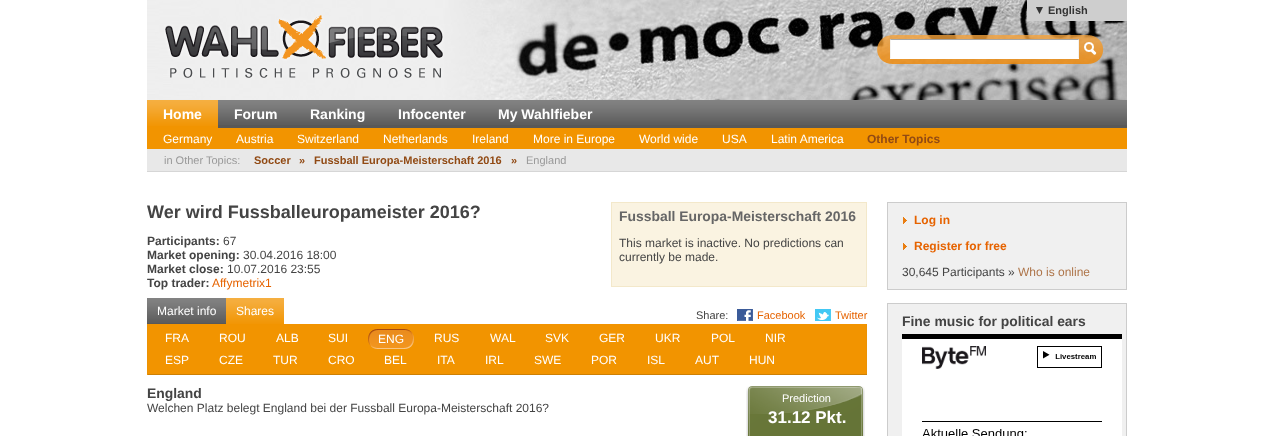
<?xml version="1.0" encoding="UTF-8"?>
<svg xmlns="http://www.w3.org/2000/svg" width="1274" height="436">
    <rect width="100%" height="100%" fill="#FFFFFF"/>
    <image x="147" y="0" width="980" height="100" href="img_01.png"/>
    <rect x="1027" y="0" width="100" height="21" fill="#CECECE"/>
    <image x="1036" y="7" width="7" height="7" href="img_02.png"/>
    <text x="1048" y="14" font-family="Liberation Sans" font-size="11" font-weight="700" fill="#333333">English</text>
    <image x="164" y="15" width="280" height="63" href="img_03.png"/>
    <image x="877" y="35" width="227" height="29" href="img_04.png"/>
    <rect x="218" y="100" width="909" height="28" fill="#585858"/>
    <image x="218" y="100" width="909" height="25" href="img_05.png"/>
    <rect x="147" y="100" width="71" height="28" fill="#F29400"/>
    <image x="147" y="100" width="71" height="26" href="img_06.png"/>
    <text x="163" y="119" font-family="Liberation Sans" font-size="14" font-weight="700" fill="#FFFFFF">Home</text>
    <text x="234" y="119" font-family="Liberation Sans" font-size="14" font-weight="700" fill="#FFFFFF">Forum</text>
    <text x="310" y="119" font-family="Liberation Sans" font-size="14" font-weight="700" fill="#FFFFFF">Ranking</text>
    <text x="398" y="119" font-family="Liberation Sans" font-size="14" font-weight="700" fill="#FFFFFF">Infocenter</text>
    <text x="498" y="119" font-family="Liberation Sans" font-size="14" font-weight="700" fill="#FFFFFF">My Wahlfieber</text>
    <rect x="147" y="128" width="980" height="21" fill="#F29400"/>
    <text x="163" y="143" font-family="Liberation Sans" font-size="12" fill="#FFFFFF">Germany</text>
    <text x="236" y="143" font-family="Liberation Sans" font-size="12" fill="#FFFFFF">Austria</text>
    <text x="297" y="143" font-family="Liberation Sans" font-size="12" fill="#FFFFFF">Switzerland</text>
    <text x="383" y="143" font-family="Liberation Sans" font-size="12" fill="#FFFFFF">Netherlands</text>
    <text x="472" y="143" font-family="Liberation Sans" font-size="12" fill="#FFFFFF">Ireland</text>
    <text x="533" y="143" font-family="Liberation Sans" font-size="12" fill="#FFFFFF">More in Europe</text>
    <text x="639" y="143" font-family="Liberation Sans" font-size="12" fill="#FFFFFF">World wide</text>
    <text x="722" y="143" font-family="Liberation Sans" font-size="12" fill="#FFFFFF">USA</text>
    <text x="771" y="143" font-family="Liberation Sans" font-size="12" fill="#FFFFFF">Latin America</text>
    <text x="867" y="143" font-family="Liberation Sans" font-size="12" font-weight="700" fill="#914A14">Other Topics</text>
    <rect x="147" y="149" width="980" height="22" fill="#E8E8E8"/>
    <rect x="147" y="171" width="980" height="1" fill="#D6D6D6"/>
    <text x="164" y="164" font-family="Liberation Sans" font-size="11" fill="#999999">in Other Topics:</text>
    <text x="254" y="164" font-family="Liberation Sans" font-size="11" font-weight="700" fill="#914A14">Soccer</text>
    <text x="299" y="164" font-family="Liberation Sans" font-size="11" font-weight="700" fill="#914A14">»</text>
    <text x="314" y="164" font-family="Liberation Sans" font-size="11" font-weight="700" fill="#914A14">Fussball Europa-Meisterschaft 2016</text>
    <text x="511" y="164" font-family="Liberation Sans" font-size="11" font-weight="700" fill="#914A14">»</text>
    <text x="526" y="164" font-family="Liberation Sans" font-size="11" fill="#999999">England</text>
    <text x="147" y="218" font-family="Liberation Sans" font-size="18" font-weight="700" fill="#444444">Wer wird Fussballeuropameister 2016?</text>
    <text x="147" y="245" font-family="Liberation Sans" font-size="12" font-weight="700" fill="#444444">Participants:</text>
    <text x="223" y="245" font-family="Liberation Sans" font-size="12" fill="#444444">67</text>
    <text x="147" y="259" font-family="Liberation Sans" font-size="12" font-weight="700" fill="#444444">Market opening:</text>
    <text x="243" y="259" font-family="Liberation Sans" font-size="12" fill="#444444">30.04.2016 18:00</text>
    <text x="147" y="273" font-family="Liberation Sans" font-size="12" font-weight="700" fill="#444444">Market close:</text>
    <text x="227" y="273" font-family="Liberation Sans" font-size="12" fill="#444444">10.07.2016 23:55</text>
    <text x="147" y="287" font-family="Liberation Sans" font-size="12" font-weight="700" fill="#444444">Top trader:</text>
    <text x="212" y="287" font-family="Liberation Sans" font-size="12" fill="#E66300">Affymetrix1</text>
    <rect x="611.5" y="202.5" width="255" height="84" fill="#FAF3E1" stroke="#F3E8CA"/>
    <text x="619" y="221" font-family="Liberation Sans" font-size="13.9" font-weight="700" fill="#666666">Fussball Europa-Meisterschaft 2016</text>
    <text font-family="Liberation Sans" font-size="12" fill="#444444">
        <tspan x="619" y="247">This market is inactive. No predictions can</tspan>
        <tspan x="619" y="261">currently be made.</tspan>
    </text>
    <rect x="147" y="298" width="79" height="26" fill="#585858"/>
    <image x="147" y="298" width="79" height="25" href="img_07.png"/>
    <text x="157" y="315" font-family="Liberation Sans" font-size="12" fill="#FFFFFF">Market info</text>
    <rect x="226" y="298" width="58" height="26" fill="#F29400"/>
    <image x="226" y="298" width="58" height="26" href="img_08.png"/>
    <text x="236" y="315" font-family="Liberation Sans" font-size="12" fill="#FFFFFF">Shares</text>
    <text x="696" y="319" font-family="Liberation Sans" font-size="11" fill="#444444">Share:</text>
    <image x="737" y="309" width="16" height="12" href="img_09.png"/>
    <text x="757" y="319" font-family="Liberation Sans" font-size="11" fill="#E66300">Facebook</text>
    <image x="815" y="309" width="16" height="12" href="img_10.png"/>
    <text x="835" y="319" font-family="Liberation Sans" font-size="11" fill="#E66300">Twitter</text>
    <rect x="148" y="324" width="718" height="50" fill="#F29400"/>
    <rect x="866" y="324" width="1" height="51" fill="#EC9204"/>
    <rect x="147" y="374" width="720" height="1" fill="#CD8005"/>
    <rect x="147" y="324" width="1" height="51" fill="#EC9204"/>
    <text x="165" y="342" font-family="Liberation Sans" font-size="12" fill="#FFFFFF">FRA</text>
    <text x="219" y="342" font-family="Liberation Sans" font-size="12" fill="#FFFFFF">ROU</text>
    <text x="276" y="342" font-family="Liberation Sans" font-size="12" fill="#FFFFFF">ALB</text>
    <text x="328" y="342" font-family="Liberation Sans" font-size="12" fill="#FFFFFF">SUI</text>
    <image x="404" y="329" width="10" height="20" href="img_11.png"/>
    <image x="368" y="329" width="36" height="20" href="img_12.png"/>
    <text x="378" y="343" font-family="Liberation Sans" font-size="12" fill="#FFFFFF">ENG</text>
    <text x="434" y="342" font-family="Liberation Sans" font-size="12" fill="#FFFFFF">RUS</text>
    <text x="490" y="342" font-family="Liberation Sans" font-size="12" fill="#FFFFFF">WAL</text>
    <text x="545" y="342" font-family="Liberation Sans" font-size="12" fill="#FFFFFF">SVK</text>
    <text x="599" y="342" font-family="Liberation Sans" font-size="12" fill="#FFFFFF">GER</text>
    <text x="655" y="342" font-family="Liberation Sans" font-size="12" fill="#FFFFFF">UKR</text>
    <text x="711" y="342" font-family="Liberation Sans" font-size="12" fill="#FFFFFF">POL</text>
    <text x="765" y="342" font-family="Liberation Sans" font-size="12" fill="#FFFFFF">NIR</text>
    <text x="165" y="364" font-family="Liberation Sans" font-size="12" fill="#FFFFFF">ESP</text>
    <text x="219" y="364" font-family="Liberation Sans" font-size="12" fill="#FFFFFF">CZE</text>
    <text x="273" y="364" font-family="Liberation Sans" font-size="12" fill="#FFFFFF">TUR</text>
    <text x="328" y="364" font-family="Liberation Sans" font-size="12" fill="#FFFFFF">CRO</text>
    <text x="384" y="364" font-family="Liberation Sans" font-size="12" fill="#FFFFFF">BEL</text>
    <text x="437" y="364" font-family="Liberation Sans" font-size="12" fill="#FFFFFF">ITA</text>
    <text x="485" y="364" font-family="Liberation Sans" font-size="12" fill="#FFFFFF">IRL</text>
    <text x="534" y="364" font-family="Liberation Sans" font-size="12" fill="#FFFFFF">SWE</text>
    <text x="591" y="364" font-family="Liberation Sans" font-size="12" fill="#FFFFFF">POR</text>
    <text x="647" y="364" font-family="Liberation Sans" font-size="12" fill="#FFFFFF">ISL</text>
    <text x="695" y="364" font-family="Liberation Sans" font-size="12" fill="#FFFFFF">AUT</text>
    <text x="749" y="364" font-family="Liberation Sans" font-size="12" fill="#FFFFFF">HUN</text>
    <text x="147" y="398" font-family="Liberation Sans" font-size="13.9" font-weight="700" fill="#444444">England</text>
    <text x="147" y="412" font-family="Liberation Sans" font-size="12" fill="#444444">Welchen Platz belegt England bei der Fussball Europa-Meisterschaft 2016?</text>
    <image x="746" y="386" width="119" height="50" href="img_13.png"/>
    <text x="782" y="402" font-family="Liberation Sans" font-size="11" fill="#FFFFFF">Prediction</text>
    <text x="768" y="423" font-family="Liberation Sans" font-size="17" font-weight="700" fill="#FFFFFF">31.12 Pkt.</text>
    <rect x="887.5" y="202.5" width="239" height="87" fill="#F0F0F0" stroke="#CCCCCC"/>
    <image x="903" y="217" width="4" height="7" href="img_14.png"/>
    <text x="914" y="224" font-family="Liberation Sans" font-size="12" font-weight="700" fill="#E66300">Log in</text>
    <image x="903" y="243" width="4" height="7" href="img_14.png"/>
    <text x="914" y="250" font-family="Liberation Sans" font-size="12" font-weight="700" fill="#E66300">Register for free</text>
    <text x="902" y="276" font-family="Liberation Sans" font-size="12" fill="#444444">30,645 Participants »</text>
    <text x="1018" y="276" font-family="Liberation Sans" font-size="12" fill="#AE754A">Who is online</text>
    <rect x="887.5" y="303.5" width="239" height="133" fill="#F0F0F0" stroke="#CCCCCC"/>
    <text x="902" y="326" font-family="Liberation Sans" font-size="13.9" font-weight="700" fill="#444444">Fine music for political ears</text>
    <image x="902" y="334" width="220" height="102" href="img_15.png"/>
</svg>
